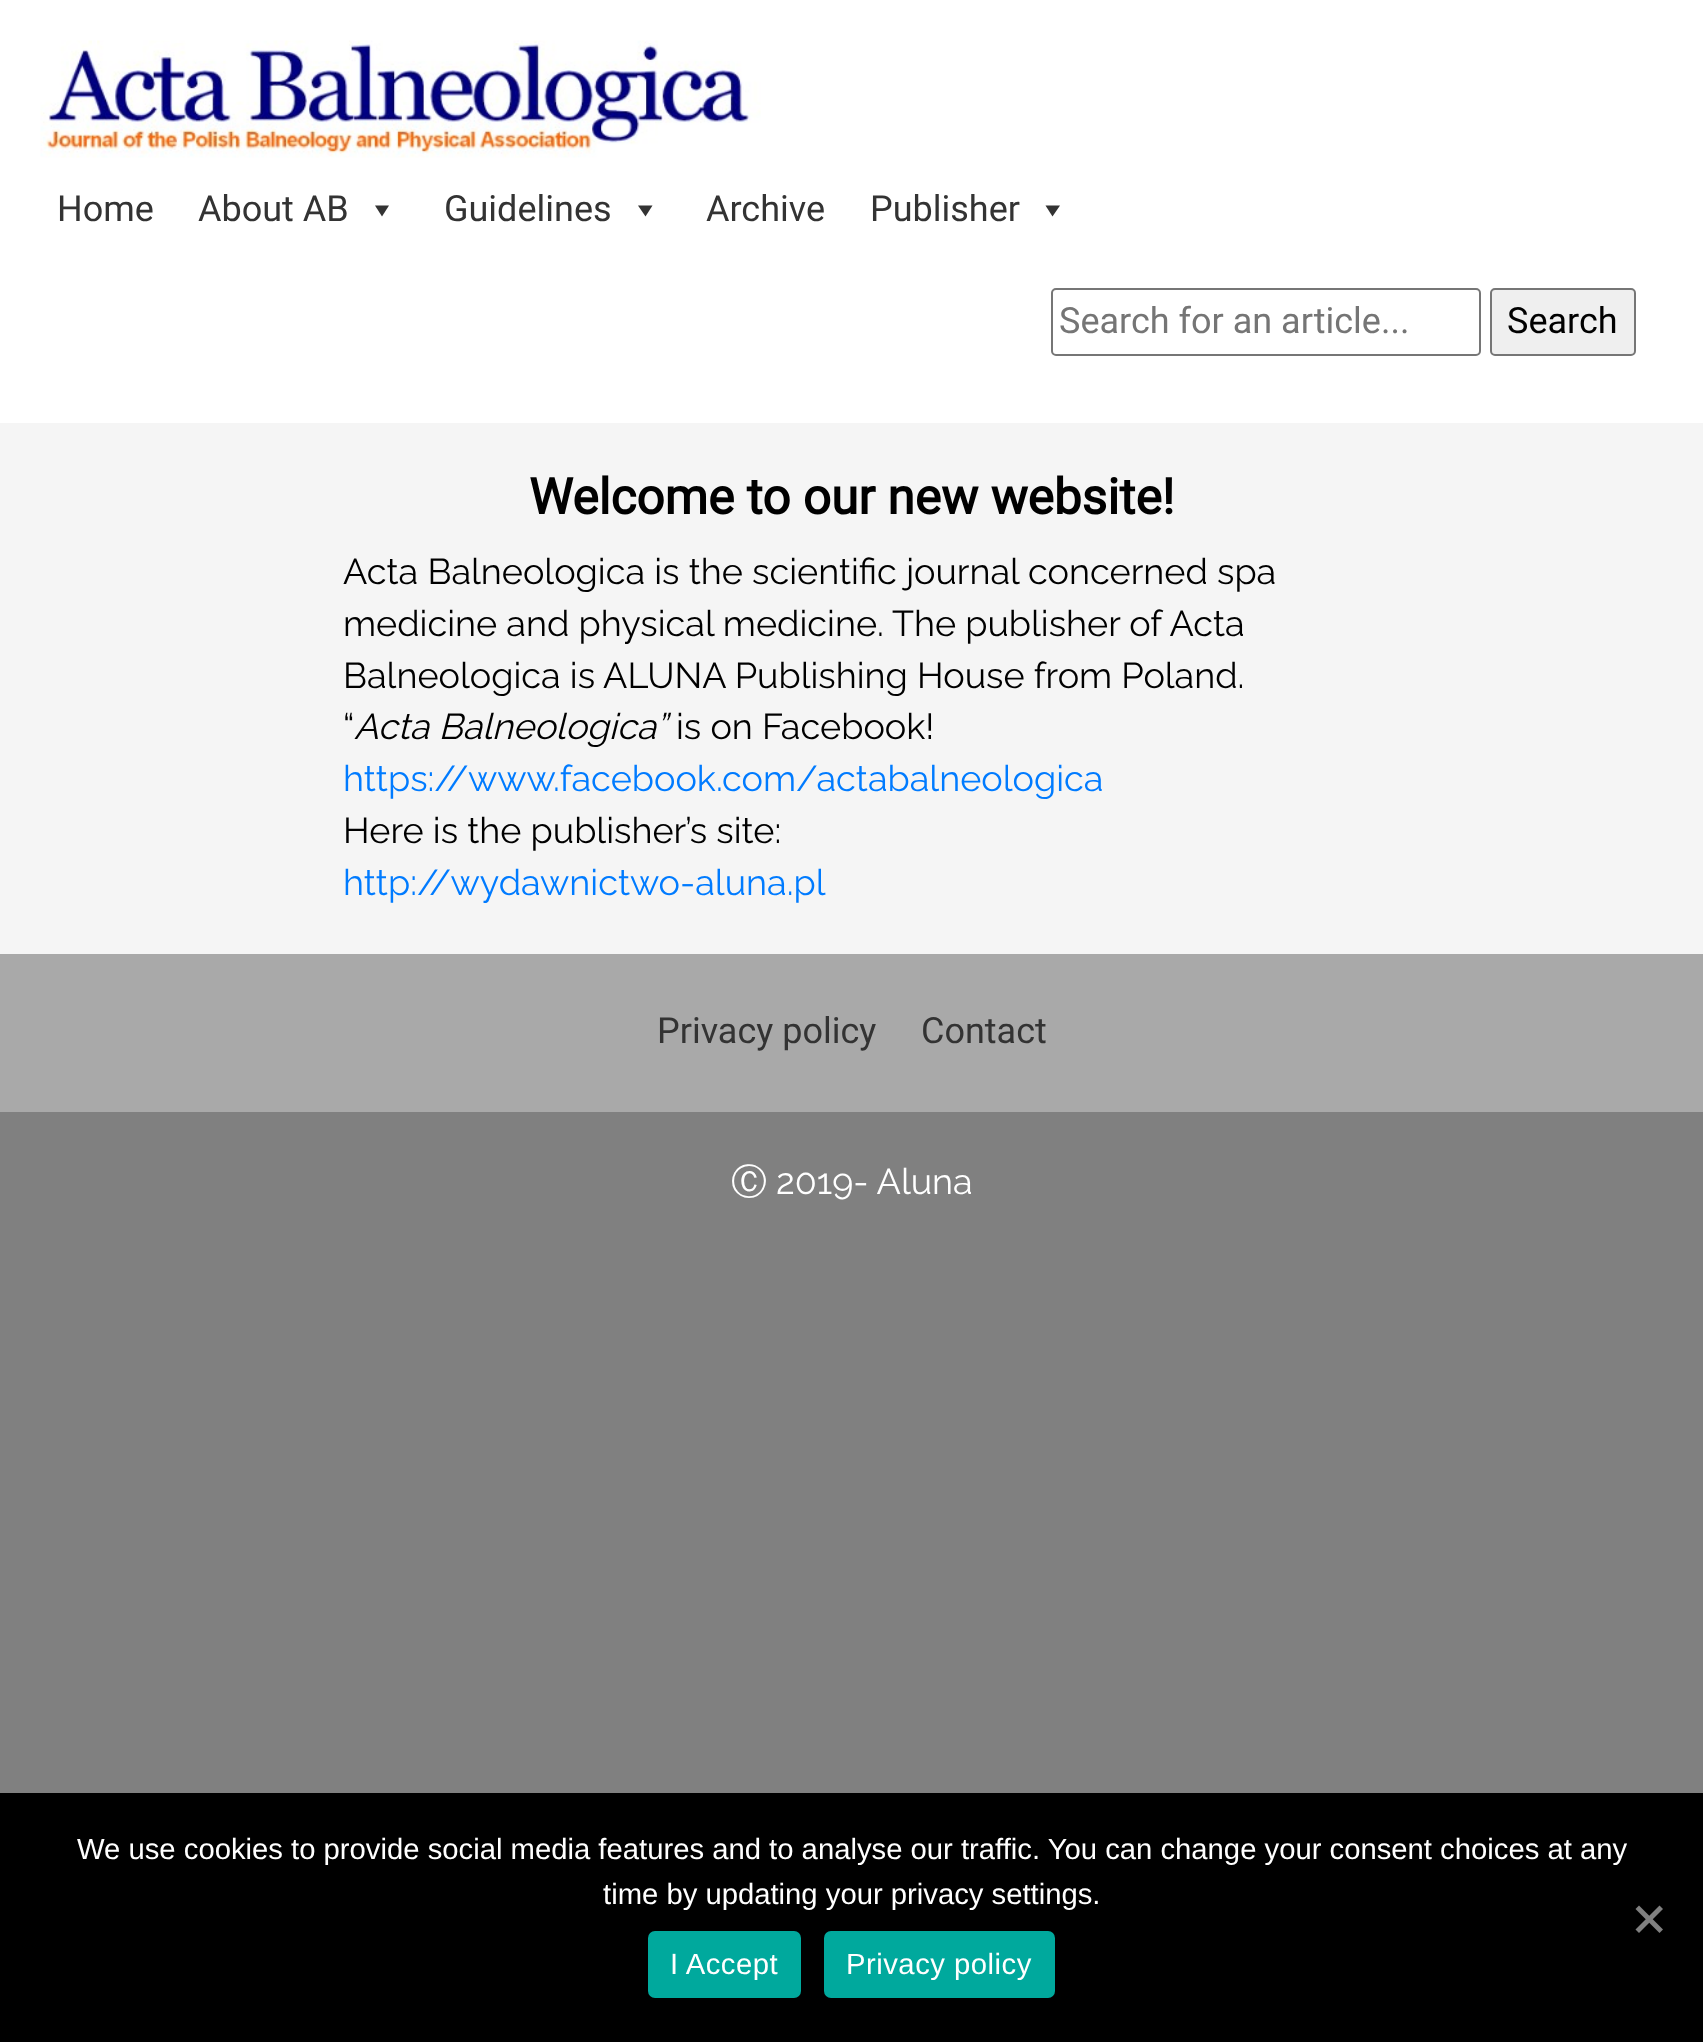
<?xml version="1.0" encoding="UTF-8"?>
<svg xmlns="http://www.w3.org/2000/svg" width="1703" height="2042">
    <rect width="100%" height="100%" fill="#808080"/>
    <rect x="0" y="0" width="1703" height="423" fill="#FFFFFF"/>
    <image x="40" y="40" width="721" height="118" href="img_01.png"/>
    <text x="57" y="221" font-family="Roboto" font-size="36" fill="#333333">Home</text>
    <text x="198" y="221" font-family="Roboto" font-size="36" fill="#333333">About AB</text>
    <path d="M 389 205.5 L 382 216.5 L 375 205.5 Z" fill="#333333"/>
    <text x="444" y="221" font-family="Roboto" font-size="36" fill="#333333">Guidelines</text>
    <path d="M 652.5 205.5 L 645.5 216.5 L 638 205.5 Z" fill="#333333"/>
    <text x="706" y="221" font-family="Roboto" font-size="36" fill="#333333">Archive</text>
    <text x="870" y="221" font-family="Roboto" font-size="36" fill="#333333">Publisher</text>
    <path d="M 1060 205.5 L 1052.5 216.5 L 1045.5 205.5 Z" fill="#333333"/>
    <rect x="1052" y="289" width="428" height="66" rx="4" fill="none" stroke="#767676" stroke-width="2"/>
    <text x="1059" y="333" font-family="Roboto" font-size="36" fill="#757575">Search for an article...</text>
    <rect x="1491" y="289" width="144" height="66" rx="4" fill="#EFEFEF" stroke="#767676" stroke-width="2"/>
    <text x="1507" y="333" font-family="Roboto" font-size="36" fill="#000000">Search</text>
    <rect x="0" y="423" width="1703" height="531" fill="#F5F5F5"/>
    <text x="529" y="514" font-family="Roboto" font-size="49.5" font-weight="700" fill="#000000">Welcome to our new website!</text>
    <text font-family="Raleway" font-size="36" font-weight="100" fill="#000000">
        <tspan x="343" y="584">Acta Balneologica is the scientific journal concerned spa</tspan>
        <tspan x="343" y="636">medicine and physical medicine. The publisher of Acta</tspan>
        <tspan x="343" y="688">Balneologica is ALUNA Publishing House from Poland.</tspan>
        <tspan x="343" y="739">“</tspan>
    </text>
    <text x="354" y="739" font-family="Raleway" font-size="36" font-weight="100" font-style="italic" fill="#000000">Acta Balneologica”</text>
    <text x="676" y="739" font-family="Raleway" font-size="36" font-weight="100" fill="#000000">is on Facebook!</text>
    <text x="343" y="791" font-family="Raleway" font-size="36" font-weight="100" fill="#007BFF">https://www.facebook.com/actabalneologica</text>
    <text x="343" y="843" font-family="Raleway" font-size="36" font-weight="100" fill="#000000">Here is the publisher’s site:</text>
    <text x="343" y="895" font-family="Raleway" font-size="36" font-weight="100" fill="#007BFF">http://wydawnictwo-aluna.pl</text>
    <rect x="0" y="954" width="1703" height="158" fill="#A9A9A9"/>
    <text x="657" y="1043" font-family="Roboto" font-size="36" fill="#333333">Privacy policy</text>
    <text x="921" y="1043" font-family="Roboto" font-size="36" fill="#333333">Contact</text>
    <text x="731" y="1194" font-family="WenQuanYi Zen Hei" font-size="36" font-weight="500" fill="#FFFFFF">Ⓒ</text>
    <text x="776" y="1194" font-family="Raleway" font-size="36" font-weight="100" fill="#FFFFFF">2019- Aluna</text>
    <rect x="0" y="1793" width="1703" height="249" fill="#000000"/>
    <text x="77" y="1859" font-family="Liberation Sans" font-size="29.25" fill="#FFFFFF">We use cookies to provide social media features and to analyse our traffic. You can change your consent choices at any</text>
    <text x="603" y="1904" font-family="Liberation Sans" font-size="29.25" fill="#FFFFFF">time by updating your privacy settings.</text>
    <path d="M 1659.5 1905.5 L 1663 1909 L 1639 1933 L 1635.5 1929.5 Z" fill="#808080"/>
    <path d="M 1635.5 1909 L 1639 1905.5 L 1663 1929.5 L 1659.5 1933 Z" fill="#808080"/>
    <rect x="648" y="1931" width="153" height="67" rx="7" fill="#00A99D"/>
    <text x="670" y="1974" font-family="Liberation Sans" font-size="29.25" letter-spacing="0.5" fill="#FFFFFF">I Accept</text>
    <rect x="824" y="1931" width="231" height="67" rx="7" fill="#00A99D"/>
    <text x="846" y="1974" font-family="Liberation Sans" font-size="29.25" letter-spacing="0.5" fill="#FFFFFF">Privacy policy</text>
</svg>
